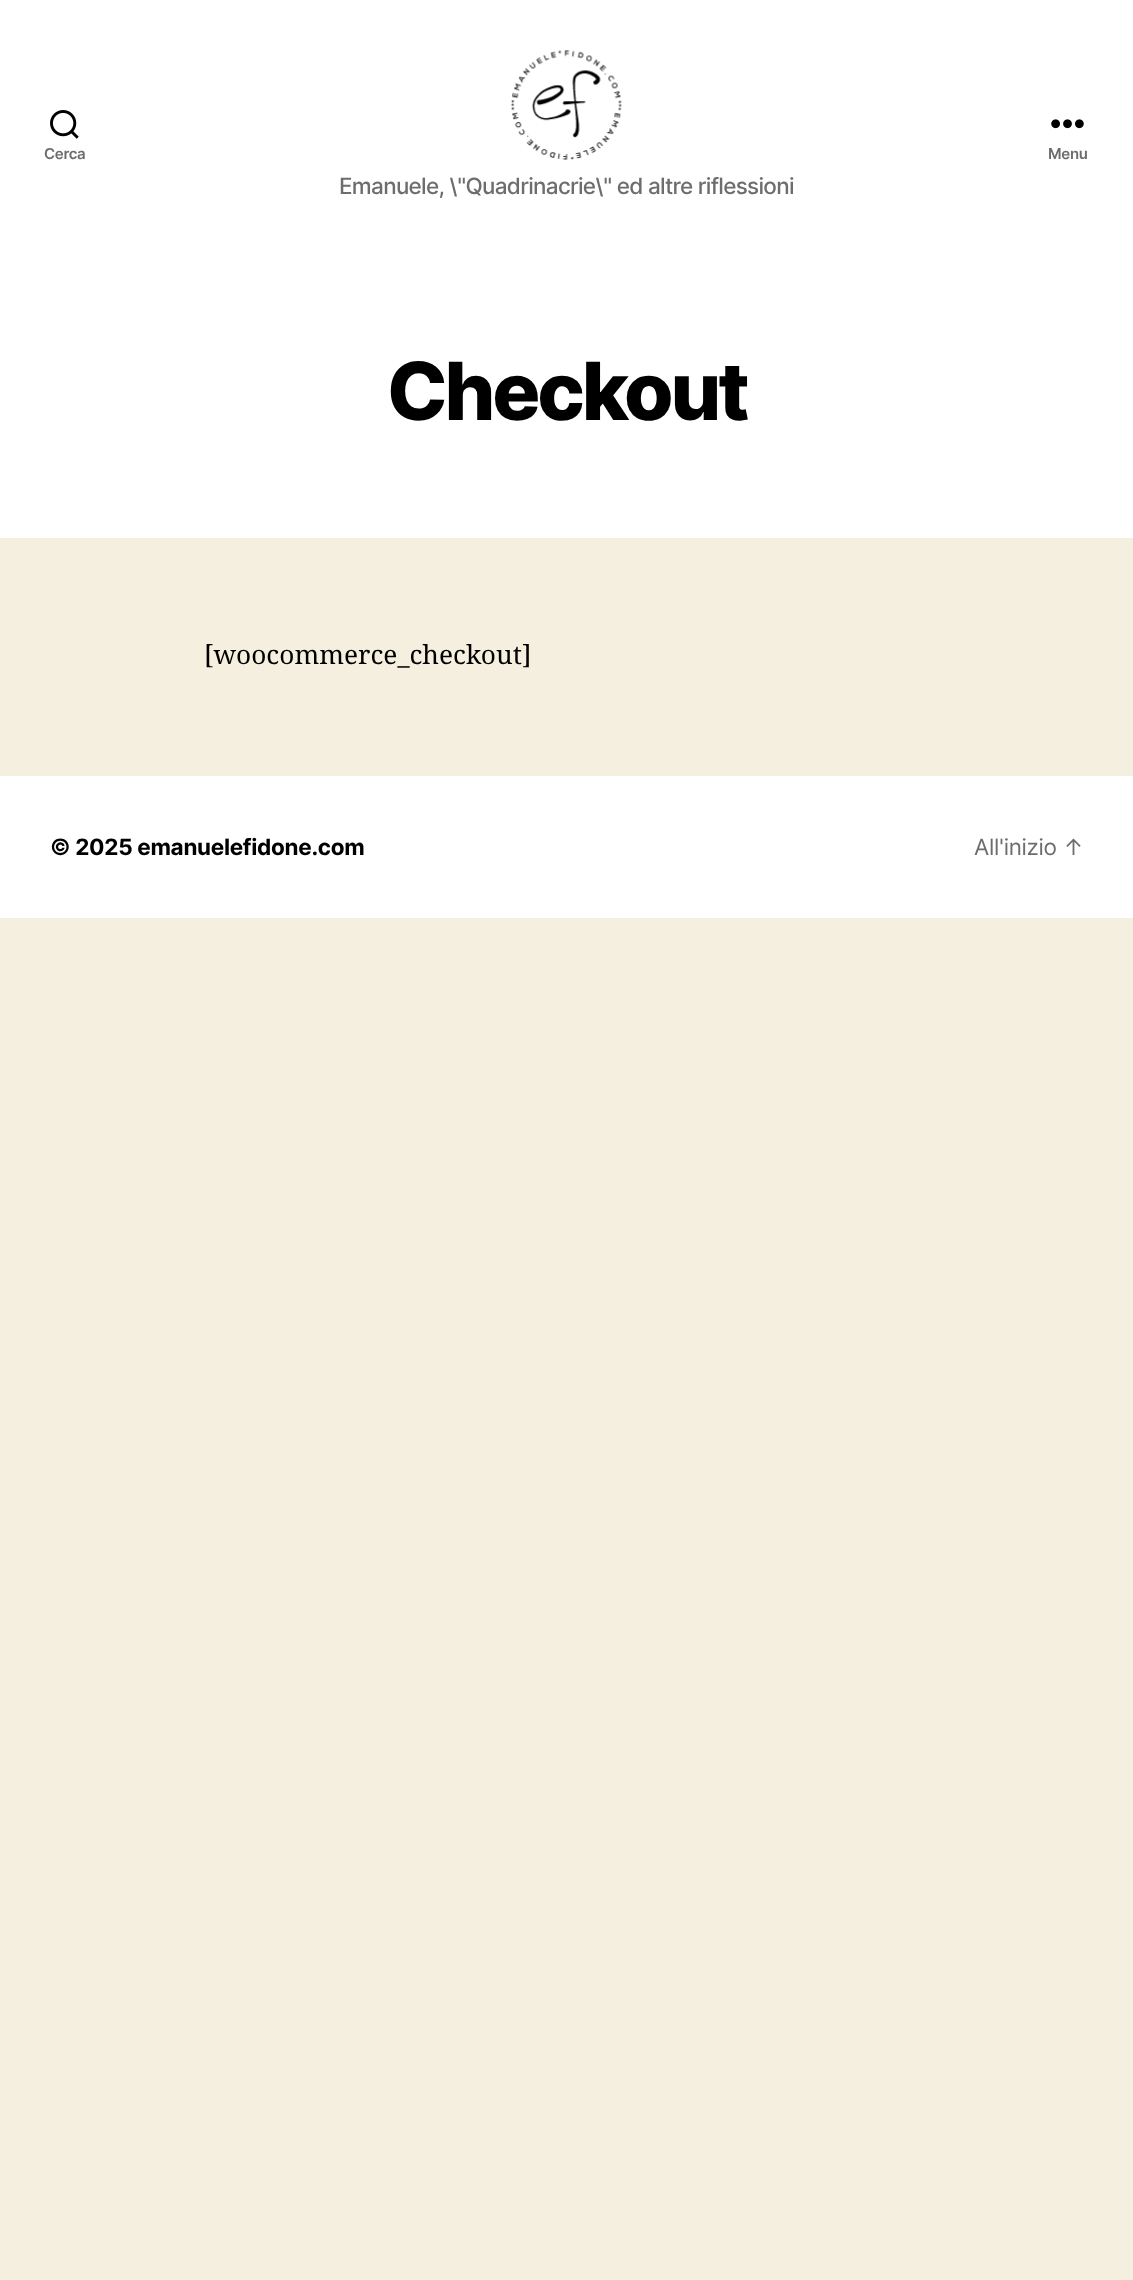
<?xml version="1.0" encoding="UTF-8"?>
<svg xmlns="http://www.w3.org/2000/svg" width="1133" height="2280">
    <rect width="100%" height="100%" fill="#F5EFE0"/>
    <rect x="0" y="0" width="1133" height="538" fill="#FFFFFF"/>
    <image x="50" y="110" width="29" height="29" href="img_01.png"/>
    <text x="44" y="159" font-family="Inter" font-size="15" font-weight="600" letter-spacing="-0.3" fill="#6D6D6D">Cerca</text>
    <image x="1051" y="119" width="33" height="10" href="img_02.png"/>
    <text x="1048" y="159" font-family="Inter" font-size="15" font-weight="600" letter-spacing="-0.3" fill="#6D6D6D">Menu</text>
    <image x="511" y="50" width="111" height="110" href="img_03.png"/>
    <text x="339" y="194" font-family="Inter" font-size="22.5" font-weight="500" letter-spacing="-0.7" fill="#6D6D6D">Emanuele, \"Quadrinacrie\" ed altre riflessioni</text>
    <text x="387" y="420" font-family="Inter" font-size="80" font-weight="800" letter-spacing="-3.25" fill="#000000">Checkout</text>
    <text x="204" y="664" font-family="Noto Serif" font-size="26.25" fill="#000000">[woocommerce_checkout]</text>
    <rect x="0" y="776" width="1133" height="142" fill="#FFFFFF"/>
    <text x="50" y="855" font-family="Inter" font-size="22.5" font-weight="700" letter-spacing="-0.3" fill="#000000">© 2025 emanuelefidone.com</text>
    <text x="974" y="855" font-family="Inter" font-size="22.5" letter-spacing="-0.3" fill="#6D6D6D">All'inizio ↑</text>
</svg>
